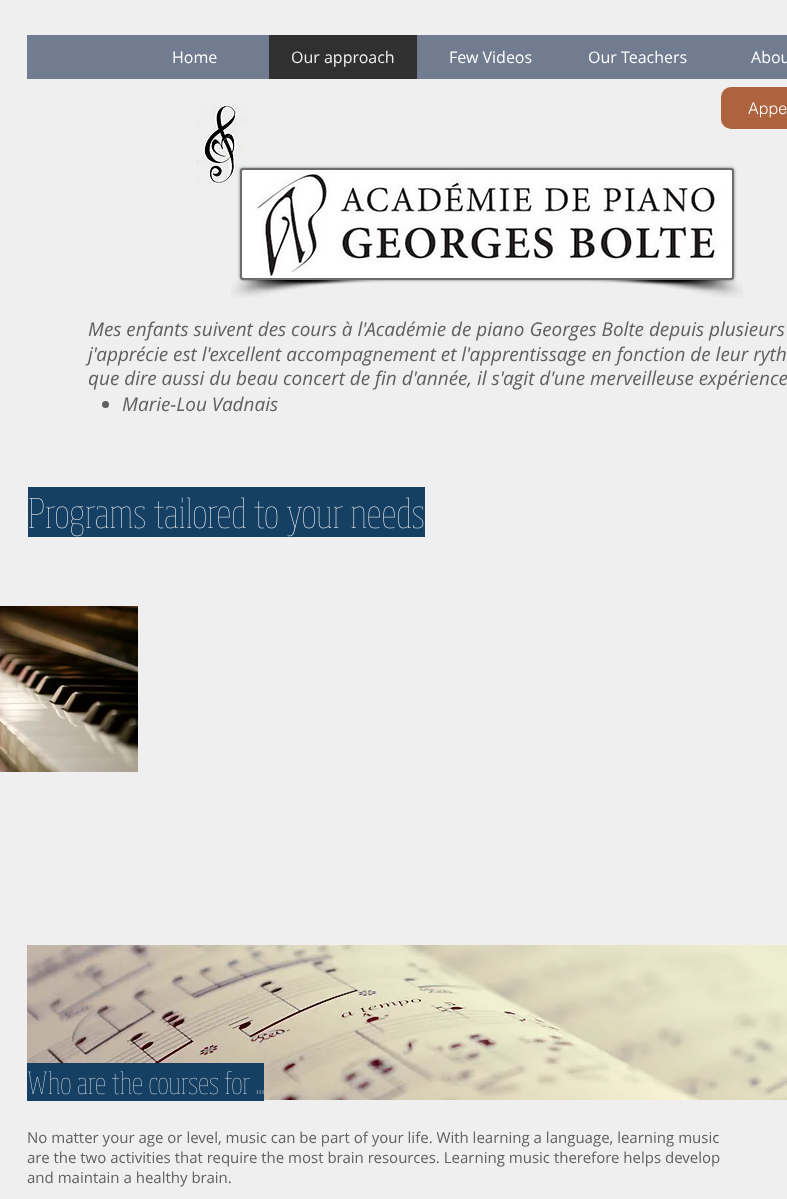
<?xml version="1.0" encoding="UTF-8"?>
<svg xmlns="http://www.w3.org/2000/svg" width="787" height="1199">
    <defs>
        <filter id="blur1" x="-50%" y="-200%" width="200%" height="500%"><feGaussianBlur stdDeviation="1.5"/></filter>
    </defs>
    <rect width="100%" height="100%" fill="#EFEFEF"/>
    <rect x="27" y="35" width="760" height="44" fill="#727C90"/>
    <text x="172" y="63" font-family="Open Sans" font-size="16" fill="#FFFFFF">Home</text>
    <rect x="269" y="35" width="148" height="44" fill="#303030"/>
    <text x="291" y="63" font-family="Open Sans" font-size="16" fill="#EFEFEF">Our approach</text>
    <text x="449" y="63" font-family="Open Sans" font-size="16" fill="#FFFFFF">Few Videos</text>
    <text x="588" y="63" font-family="Open Sans" font-size="16" fill="#FFFFFF">Our Teachers</text>
    <text x="751" y="63" font-family="Open Sans" font-size="16" fill="#FFFFFF">Abou</text>
    <image x="196" y="104" width="54" height="80" href="img_01.png"/>
    <rect x="721" y="87" width="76" height="42" rx="10" fill="#AE633F"/>
    <text x="748" y="114" font-family="helvetica" font-size="16" font-weight="300" fill="#FFFFFF">Appe</text>
    <rect x="240" y="168" width="494" height="112" rx="3" fill="#000000" fill-opacity="0.5" filter="url(#blur1)"/>
    <rect x="240" y="168" width="494" height="112" rx="3" fill="#606060" fill-opacity="0.51"/>
    <rect x="241" y="169" width="492" height="110" rx="2" fill="none" stroke="#606060" stroke-opacity="0.51" stroke-width="2"/>
    <image x="242" y="170" width="490" height="108" href="img_02.png"/>
    <image x="231" y="280" width="154" height="18" href="img_03.png"/>
    <image x="589" y="280" width="154" height="18" href="img_04.png"/>
    <text font-family="Open Sans" font-size="19" font-style="italic" fill="#606060">
        <tspan x="88" y="336">Mes enfants suivent des cours à l'Académie de piano Georges Bolte depuis plusieurs</tspan>
        <tspan x="88" y="361">j'apprécie est l'excellent accompagnement et l'apprentissage en fonction de leur ryth</tspan>
        <tspan x="88" y="385">que dire aussi du beau concert de fin d'année, il s'agit d'une merveilleuse expérience</tspan>
    </text>
    <circle cx="105.5" cy="404.5" r="3.5" fill="#606060"/>
    <text x="122" y="411" font-family="Open Sans" font-size="19" font-style="italic" fill="#606060">Marie-Lou Vadnais</text>
    <rect x="28" y="487" width="397" height="50" fill="#154063"/>
    <image x="29" y="497" width="395" height="40" href="img_05.png"/>
    <image x="0" y="606" width="138" height="166" href="img_06.png"/>
    <image x="27" y="945" width="760" height="155" href="img_07.png"/>
    <rect x="27" y="1063" width="237" height="38" fill="#154063"/>
    <image x="27" y="1071" width="237" height="24" href="img_08.png"/>
    <text font-family="Open Sans" font-size="15" fill="#606060">
        <tspan x="27" y="1143">No matter your age or level, music can be part of your life. With learning a language, learning music</tspan>
        <tspan x="27" y="1163">are the two activities that require the most brain resources. Learning music therefore helps develop</tspan>
        <tspan x="27" y="1183">and maintain a healthy brain.</tspan>
    </text>
</svg>
